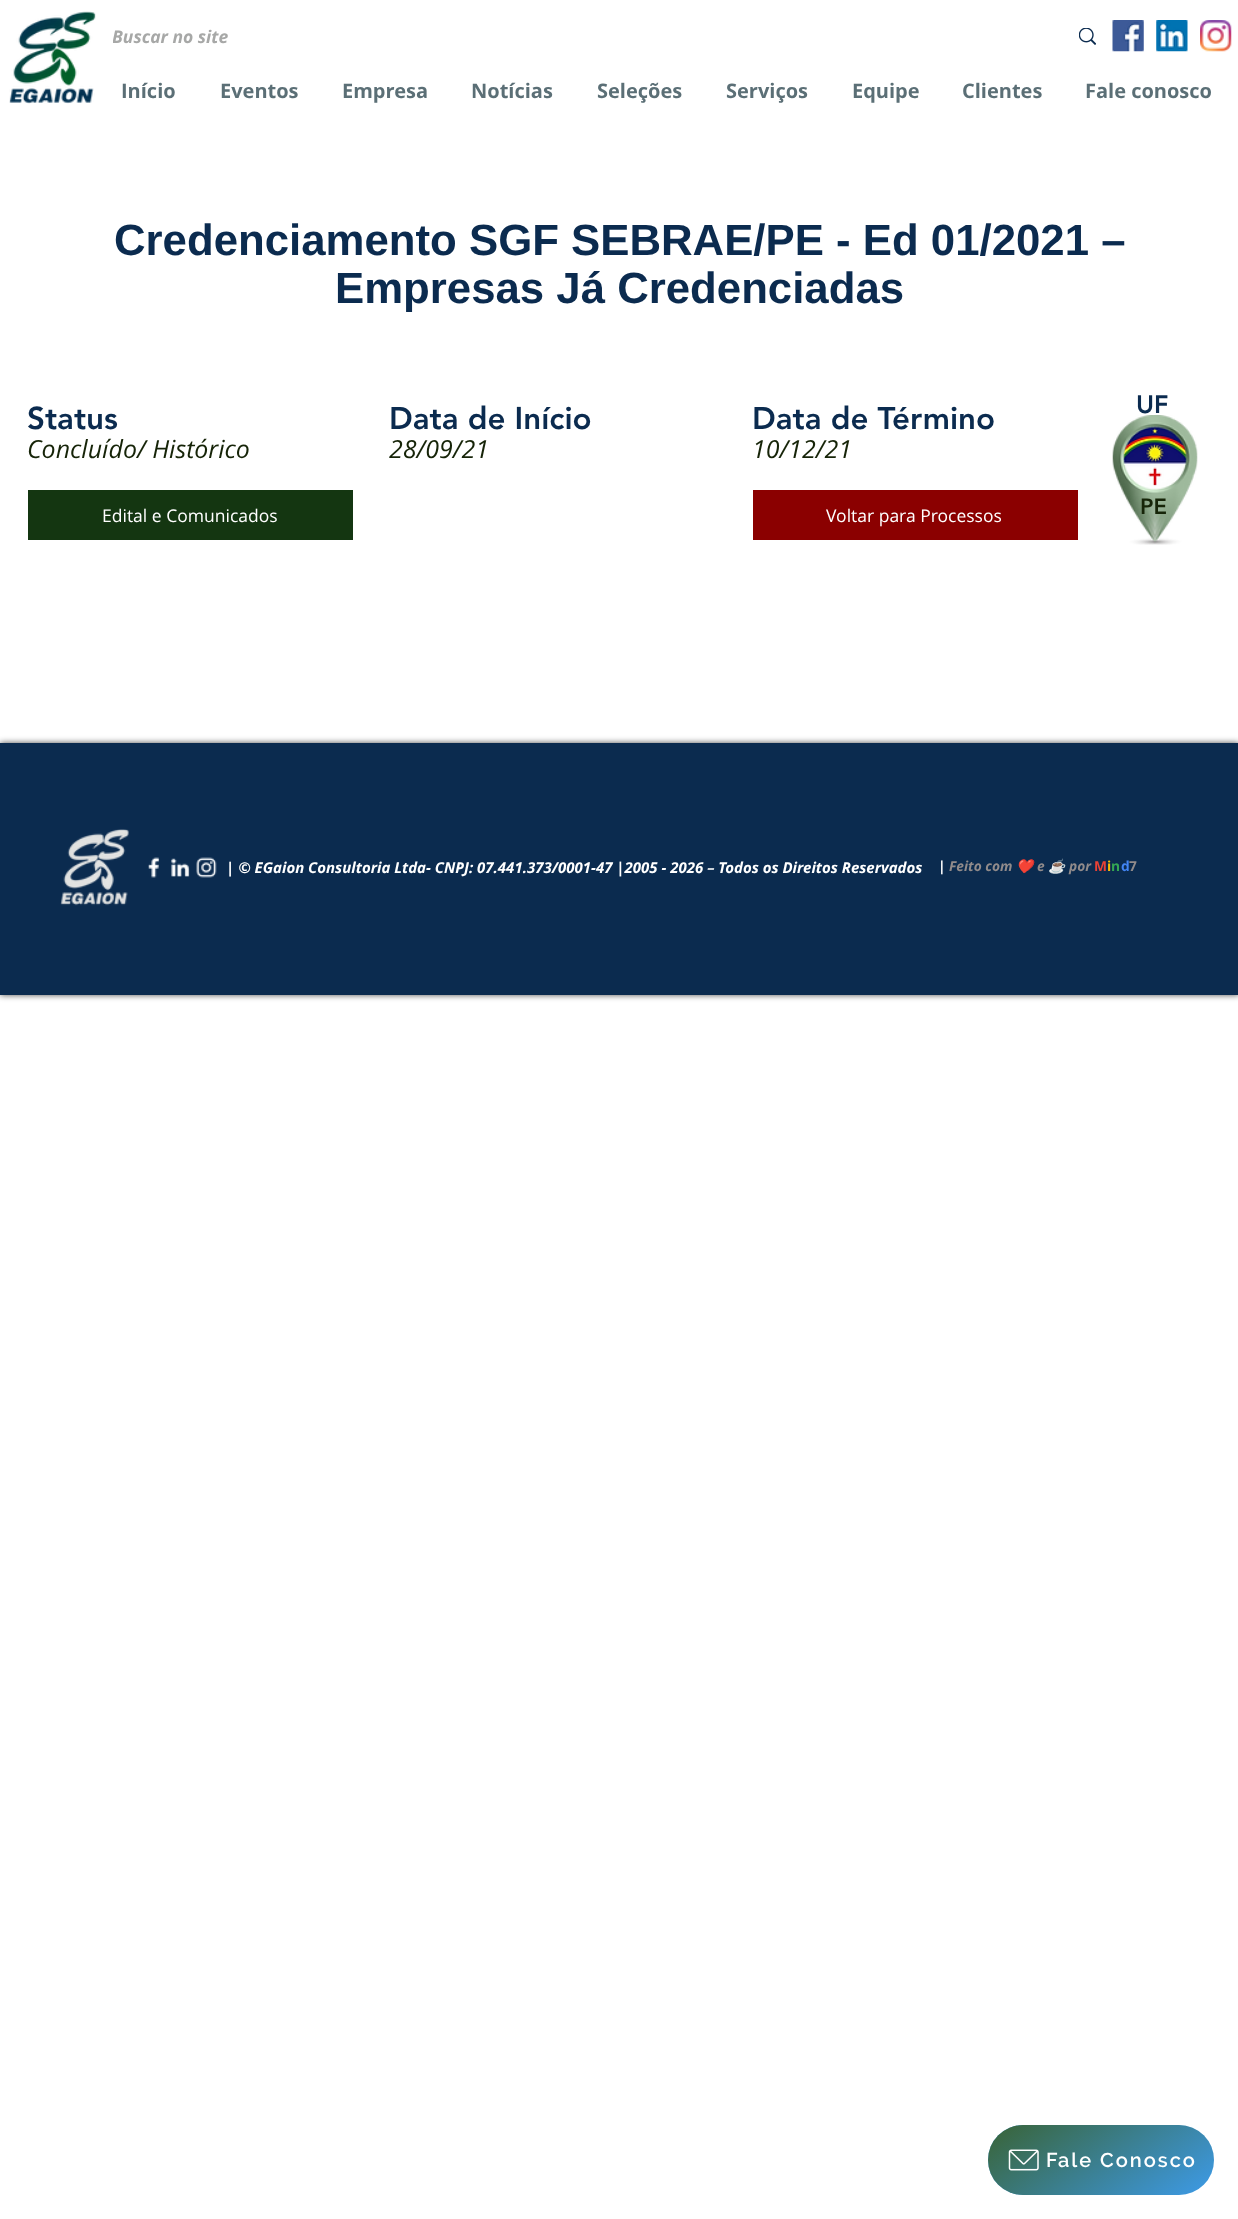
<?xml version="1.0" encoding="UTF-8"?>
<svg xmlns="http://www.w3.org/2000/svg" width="1238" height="2219">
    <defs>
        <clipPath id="clip1"><rect x="113" y="24" width="897" height="24"/></clipPath>
        <filter id="blur1" x="-50%" y="-200%" width="200%" height="500%"><feGaussianBlur stdDeviation="3"/></filter>
        <linearGradient id="g1" gradientUnits="userSpaceOnUse" x1="1047" y1="2083" x2="1154" y2="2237"><stop offset="0" stop-color="#396335"/><stop offset="1" stop-color="#396335" stop-opacity="0"/></linearGradient>
    </defs>
    <rect width="100%" height="100%" fill="#FFFFFF"/>
    <image x="9" y="11" width="87" height="93" href="img_01.png"/>
    <g clip-path="url(#clip1)">
        <text x="112" y="43" font-family="Open Sans" font-size="17.5" font-weight="700" font-style="italic" fill="#A7A8A7">Buscar no site</text>
    </g>
    <image x="1079" y="28" width="17" height="17" href="img_02.png"/>
    <image x="1112" y="20" width="32" height="32" href="img_03.png"/>
    <image x="1156" y="20" width="32" height="32" href="img_04.png"/>
    <image x="1200" y="20" width="32" height="32" href="img_05.png"/>
    <text x="121" y="98" font-family="Open Sans" font-size="20" font-weight="700" fill="#5B6F76">Início</text>
    <text x="220" y="98" font-family="Open Sans" font-size="20" font-weight="700" fill="#5B6F76">Eventos</text>
    <text x="342" y="98" font-family="Open Sans" font-size="20" font-weight="700" fill="#5B6F76">Empresa</text>
    <text x="471" y="98" font-family="Open Sans" font-size="20" font-weight="700" fill="#5B6F76">Notícias</text>
    <text x="597" y="98" font-family="Open Sans" font-size="20" font-weight="700" fill="#5B6F76">Seleções</text>
    <text x="726" y="98" font-family="Open Sans" font-size="20" font-weight="700" fill="#5B6F76">Serviços</text>
    <text x="852" y="98" font-family="Open Sans" font-size="20" font-weight="700" fill="#5B6F76">Equipe</text>
    <text x="962" y="98" font-family="Open Sans" font-size="20" font-weight="700" fill="#5B6F76">Clientes</text>
    <text x="1085" y="98" font-family="Open Sans" font-size="20" font-weight="700" fill="#5B6F76">Fale conosco</text>
    <text x="114" y="255" font-family="Liberation Sans" font-size="43.75" font-weight="700" fill="#0B2B4F">Credenciamento SGF SEBRAE/PE - Ed 01/2021 –</text>
    <text x="335" y="303" font-family="Liberation Sans" font-size="43.75" font-weight="700" fill="#0B2B4F">Empresas Já Credenciadas</text>
    <text x="27" y="429" font-family="'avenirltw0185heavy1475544'" font-size="31.25" font-weight="900" fill="#0B2B4F">Status</text>
    <text x="27" y="458" font-family="Open Sans" font-size="25" font-style="italic" fill="#162408">Concluído/ Histórico</text>
    <text x="389" y="429" font-family="'avenirltw0185heavy1475544'" font-size="31.25" font-weight="900" fill="#0B2B4F">Data de Início</text>
    <text x="389" y="458" font-family="Open Sans" font-size="25" font-style="italic" fill="#162408">28/09/21</text>
    <text x="752" y="429" font-family="'avenirltw0185heavy1475544'" font-size="31.25" font-weight="900" fill="#0B2B4F">Data de Término</text>
    <text x="752" y="458" font-family="Open Sans" font-size="25" font-style="italic" fill="#162408">10/12/21</text>
    <text x="1136" y="413" font-family="'avenirltw0185heavy1475544'" font-size="25" font-weight="900" fill="#0B2B4F">UF</text>
    <image x="1112" y="415" width="86" height="130" href="img_06.png"/>
    <text x="1140" y="514" font-family="'avenirltw0185heavy1475544'" font-size="22" font-weight="900" fill="#162408">PE</text>
    <rect x="28" y="490" width="325" height="50" fill="#143611"/>
    <text x="102" y="522" font-family="Open Sans" font-size="17.5" fill="#FFFFFF">Edital e Comunicados</text>
    <rect x="753" y="490" width="325" height="50" fill="#8B0000"/>
    <text x="826" y="522" font-family="Open Sans" font-size="17.5" fill="#FFFFFF">Voltar para Processos</text>
    <rect x="0" y="743" width="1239" height="252" fill="#000000" fill-opacity="0.7" filter="url(#blur1)"/>
    <rect x="0" y="743" width="1238" height="252" fill="#0B2B4F"/>
    <image x="60" y="829" width="69" height="77" href="img_07.png"/>
    <image x="148" y="857" width="12" height="21" href="img_08.png"/>
    <image x="171" y="858" width="19" height="19" href="img_09.png"/>
    <image x="196" y="857" width="21" height="21" href="img_10.png"/>
    <text x="226" y="873" font-family="Open Sans" font-size="15" font-weight="700" font-style="italic" fill="#FFFFFF">| © EGaion Consultoria Ltda- CNPJ: 07.441.373/0001-47 |2005 - 2026 – Todos os Direitos Reservados</text>
    <text x="938" y="871" font-family="Open Sans" font-size="13.75" font-weight="700" font-style="italic" fill="#FFFFFF">|</text>
    <text x="949" y="871" font-family="Open Sans" font-size="13.75" font-weight="700" font-style="italic" fill="#918B8B">Feito com</text>
    <text x="1016" y="871" font-family="Noto Color Emoji" font-size="13.75" font-weight="700" font-style="italic" fill="#918B8B">❤️</text>
    <text x="1037" y="871" font-family="Open Sans" font-size="13.75" font-weight="700" font-style="italic" fill="#918B8B">e</text>
    <text x="1048" y="871" font-family="Noto Color Emoji" font-size="13.75" font-weight="700" font-style="italic" fill="#918B8B">☕</text>
    <text x="1069" y="871" font-family="Open Sans" font-size="13.75" font-weight="700" font-style="italic" fill="#918B8B">por</text>
    <text x="1094" y="871" font-family="Open Sans" font-size="13.75" font-weight="700" fill="#E94235">M</text>
    <text x="1107" y="871" font-family="Open Sans" font-size="13.75" font-weight="700" fill="#FABB05">i</text>
    <text x="1111" y="871" font-family="Open Sans" font-size="13.75" font-weight="700" fill="#34A853">n</text>
    <text x="1121" y="871" font-family="Open Sans" font-size="13.75" font-weight="700" fill="#4285F4">d</text>
    <text x="1129" y="871" font-family="Open Sans" font-size="13.75" font-weight="700" fill="#918B8B">7</text>
    <rect x="988" y="2125" width="226" height="70" rx="35" fill="#3D9BE9"/>
    <rect x="988" y="2125" width="226" height="70" rx="35" fill="url(#g1)"/>
    <image x="1008" y="2149" width="31" height="22" href="img_11.png"/>
    <text x="1046" y="2167" font-family="Raleway" font-size="20" font-weight="600" letter-spacing="2" fill="#FFFFFF">Fale Conosco</text>
</svg>
